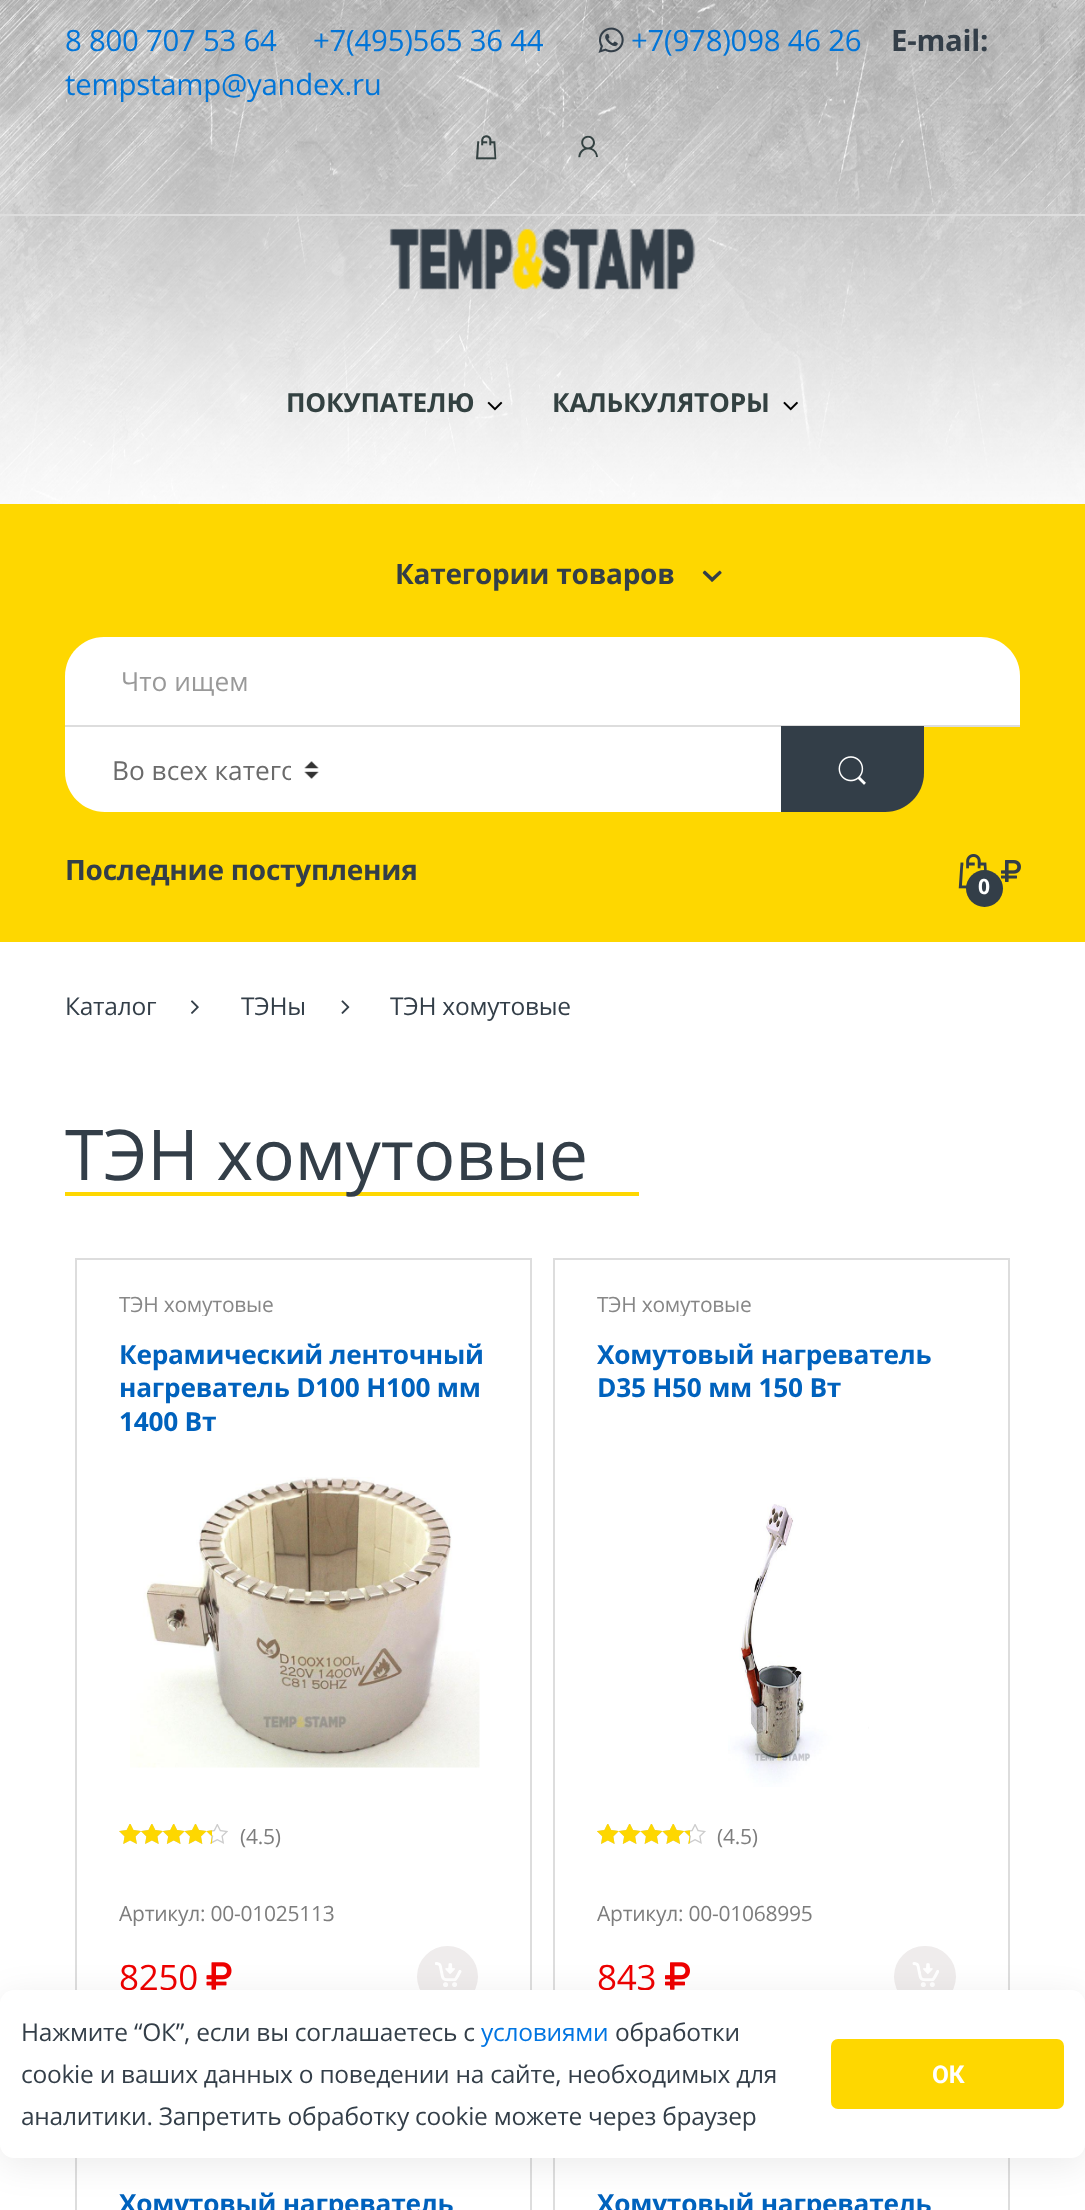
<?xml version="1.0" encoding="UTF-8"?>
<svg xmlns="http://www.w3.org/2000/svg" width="1085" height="2210">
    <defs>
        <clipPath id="clip1"><rect x="112" y="744" width="179" height="51"/></clipPath>
        <clipPath id="clip2"><rect x="119" y="1295" width="369" height="21"/></clipPath>
        <clipPath id="clip3"><rect x="597" y="1295" width="369" height="21"/></clipPath>
        <filter id="blur1" x="-50%" y="-200%" width="200%" height="500%"><feGaussianBlur stdDeviation="17.5"/></filter>
    </defs>
    <rect width="100%" height="100%" fill="#FFFFFF"/>
    <image x="0" y="0" width="1085" height="504" href="img_01.png"/>
    <rect x="0" y="214" width="1085" height="2" fill="#DDDDDD"/>
    <text x="65" y="51" font-family="Open Sans" font-size="29.4" letter-spacing="-0.25" fill="#0275D8">8 800 707 53 64</text>
    <text x="313" y="51" font-family="Open Sans" font-size="29.4" letter-spacing="-0.25" fill="#0275D8">+7(495)565 36 44</text>
    <image x="598" y="27" width="26" height="26" href="img_02.png"/>
    <text x="631" y="51" font-family="Open Sans" font-size="29.4" letter-spacing="-0.25" fill="#0275D8">+7(978)098 46 26</text>
    <text x="891" y="51" font-family="Open Sans" font-size="29.4" font-weight="700" letter-spacing="-0.25" fill="#333E48">E-mail:</text>
    <text x="65" y="95" font-family="Open Sans" font-size="29.4" letter-spacing="-0.25" fill="#0275D8">tempstamp@yandex.ru</text>
    <image x="476" y="135" width="21" height="25" href="img_03.png"/>
    <image x="578" y="135" width="20" height="23" href="img_04.png"/>
    <image x="389" y="228" width="307" height="62" href="img_05.png"/>
    <text x="286" y="412" font-family="Open Sans" font-size="26.25" font-weight="700" letter-spacing="-0.25" fill="#334141">ПОКУПАТЕЛЮ</text>
    <image x="487" y="401" width="16" height="10" href="img_06.png"/>
    <text x="552" y="412" font-family="Open Sans" font-size="26.25" font-weight="700" letter-spacing="-0.25" fill="#334141">КАЛЬКУЛЯТОРЫ</text>
    <image x="783" y="401" width="15" height="10" href="img_07.png"/>
    <rect x="0" y="504" width="1085" height="438" fill="#FED700"/>
    <text x="395" y="584" font-family="Open Sans" font-size="28" font-weight="700" letter-spacing="-0.25" fill="#333E48">Категории товаров</text>
    <image x="702" y="570" width="20" height="12" href="img_08.png"/>
    <path d="M 104 637 H 981 C 1002.5 637 1020 654.5 1020 676 V 725 H 65 V 676 C 65 654.5 82.5 637 104 637 Z" fill="#FFFFFF"/>
    <path d="M 65 726 H 782 V 812 H 105 C 83 812 65 794 65 772 Z" fill="#FFFFFF"/>
    <rect x="65" y="725" width="955" height="2" fill="#DDDDDD"/>
    <text x="121" y="691" font-family="Open Sans" font-size="26.25" fill="#999999">Что ищем</text>
    <image x="304" y="761" width="15" height="18" href="img_09.png"/>
    <g clip-path="url(#clip1)">
        <text x="112" y="780" font-family="Open Sans" font-size="26.25" fill="#6B6B6B">Во всех катего</text>
    </g>
    <path d="M 781 726 H 924 V 773 C 924 794.5 906.5 812 885 812 H 781 Z" fill="#333E48"/>
    <image x="838" y="756" width="28" height="29" href="img_10.png"/>
    <text x="65" y="880" font-family="Open Sans" font-size="28" font-weight="700" letter-spacing="-0.25" fill="#333E48">Последние поступления</text>
    <image x="958" y="854" width="29" height="35" href="img_11.png"/>
    <image x="1001" y="860" width="20" height="22" href="img_12.png"/>
    <circle cx="984.5" cy="888.5" r="18.5" fill="#333E48"/>
    <text x="978" y="894" font-family="Open Sans" font-size="21" font-weight="700" letter-spacing="-0.25" fill="#FFFFFF">0</text>
    <text x="65" y="1015" font-family="Open Sans" font-size="24.5" letter-spacing="-0.25" fill="#333E48">Каталог</text>
    <image x="191" y="1000" width="8" height="14" href="img_13.png"/>
    <text x="241" y="1015" font-family="Open Sans" font-size="24.5" letter-spacing="-0.25" fill="#333E48">ТЭНы</text>
    <image x="341" y="1000" width="9" height="14" href="img_14.png"/>
    <text x="390" y="1015" font-family="Open Sans" font-size="24.5" letter-spacing="-0.25" fill="#333E48">ТЭН хомутовые</text>
    <rect x="65" y="1192" width="574" height="4" fill="#FED700"/>
    <text x="65" y="1180" font-family="Open Sans" font-size="70" letter-spacing="-0.25" fill="#333E48">ТЭН хомутовые</text>
    <rect x="76" y="1259" width="455" height="828" fill="none" stroke="#DDDDDD" stroke-width="2"/>
    <g clip-path="url(#clip2)">
        <text x="119" y="1312" font-family="Open Sans" font-size="21" letter-spacing="-0.25" fill="#878787">ТЭН хомутовые</text>
    </g>
    <text font-family="Open Sans" font-size="26.25" font-weight="700" letter-spacing="-0.25" fill="#0062BD">
        <tspan x="119" y="1364">Керамический ленточный</tspan>
        <tspan x="119" y="1397">нагреватель D100 H100 мм</tspan>
        <tspan x="119" y="1431">1400 Вт</tspan>
    </text>
    <image x="130" y="1477" width="350" height="291" href="img_15.png"/>
    <image x="119" y="1824" width="109" height="20" href="img_16.png"/>
    <image x="119" y="1824" width="93" height="20" href="img_17.png"/>
    <text x="240" y="1844" font-family="Open Sans" font-size="21" letter-spacing="-0.25" fill="#7D7D7D">(4.5)</text>
    <text x="119" y="1921" font-family="Open Sans" font-size="21" letter-spacing="-0.25" fill="#7D7D7D">Артикул: 00-01025113</text>
    <text x="119" y="1990" font-family="Open Sans" font-size="35" letter-spacing="-0.25" fill="#EE0000">8250</text>
    <image x="206" y="1962" width="26" height="28" href="img_18.png"/>
    <circle cx="447.5" cy="1976.5" r="30.5" fill="#EFECEC"/>
    <image x="435" y="1962" width="27" height="25" href="img_19.png"/>
    <rect x="554" y="1259" width="455" height="828" fill="none" stroke="#DDDDDD" stroke-width="2"/>
    <g clip-path="url(#clip3)">
        <text x="597" y="1312" font-family="Open Sans" font-size="21" letter-spacing="-0.25" fill="#878787">ТЭН хомутовые</text>
    </g>
    <text font-family="Open Sans" font-size="26.25" font-weight="700" letter-spacing="-0.25" fill="#0062BD">
        <tspan x="597" y="1364">Хомутовый нагреватель</tspan>
        <tspan x="597" y="1397">D35 H50 мм 150 Вт</tspan>
    </text>
    <image x="728" y="1504" width="141" height="283" href="img_20.png"/>
    <image x="597" y="1824" width="109" height="20" href="img_21.png"/>
    <image x="597" y="1824" width="93" height="20" href="img_22.png"/>
    <text x="717" y="1844" font-family="Open Sans" font-size="21" letter-spacing="-0.25" fill="#7D7D7D">(4.5)</text>
    <text x="597" y="1921" font-family="Open Sans" font-size="21" letter-spacing="-0.25" fill="#7D7D7D">Артикул: 00-01068995</text>
    <text x="597" y="1990" font-family="Open Sans" font-size="35" letter-spacing="-0.25" fill="#EE0000">843</text>
    <image x="665" y="1962" width="25" height="28" href="img_23.png"/>
    <rect x="894" y="1946" width="62" height="61" rx="30.5" fill="#EFECEC"/>
    <image x="912" y="1962" width="27" height="25" href="img_24.png"/>
    <rect x="76" y="2108" width="455" height="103" fill="none" stroke="#DDDDDD" stroke-width="2"/>
    <text x="119" y="2213" font-family="Open Sans" font-size="26.25" font-weight="700" letter-spacing="-0.25" fill="#0062BD">Хомутовый нагреватель</text>
    <rect x="554" y="2108" width="455" height="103" fill="none" stroke="#DDDDDD" stroke-width="2"/>
    <text x="597" y="2213" font-family="Open Sans" font-size="26.25" font-weight="700" letter-spacing="-0.25" fill="#0062BD">Хомутовый нагреватель</text>
    <rect x="0" y="1997" width="1085" height="168" rx="14" fill="#000000" fill-opacity="0.08" filter="url(#blur1)"/>
    <rect x="0" y="1990" width="1085" height="168" rx="14" fill="#FFFFFF"/>
    <text x="21" y="2041" font-family="Open Sans" font-size="24.5" letter-spacing="-0.25" fill="#333E48">Нажмите “ОК”, если вы соглашаетесь с</text>
    <text x="481" y="2041" font-family="Open Sans" font-size="24.5" letter-spacing="-0.25" fill="#0075E2">условиями</text>
    <text x="615" y="2041" font-family="Open Sans" font-size="24.5" letter-spacing="-0.25" fill="#333E48">обработки</text>
    <text font-family="Open Sans" font-size="24.5" letter-spacing="-0.25" fill="#333E48">
        <tspan x="21" y="2083">cookie и ваших данных о поведении на сайте, необходимых для</tspan>
        <tspan x="21" y="2125">аналитики. Запретить обработку cookie можете через браузер</tspan>
    </text>
    <rect x="831" y="2039" width="233" height="70" rx="7" fill="#FED700"/>
    <text x="932" y="2083" font-family="Roboto" font-size="24.5" font-weight="700" letter-spacing="-0.25" fill="#FFFFFF">ОК</text>
</svg>
